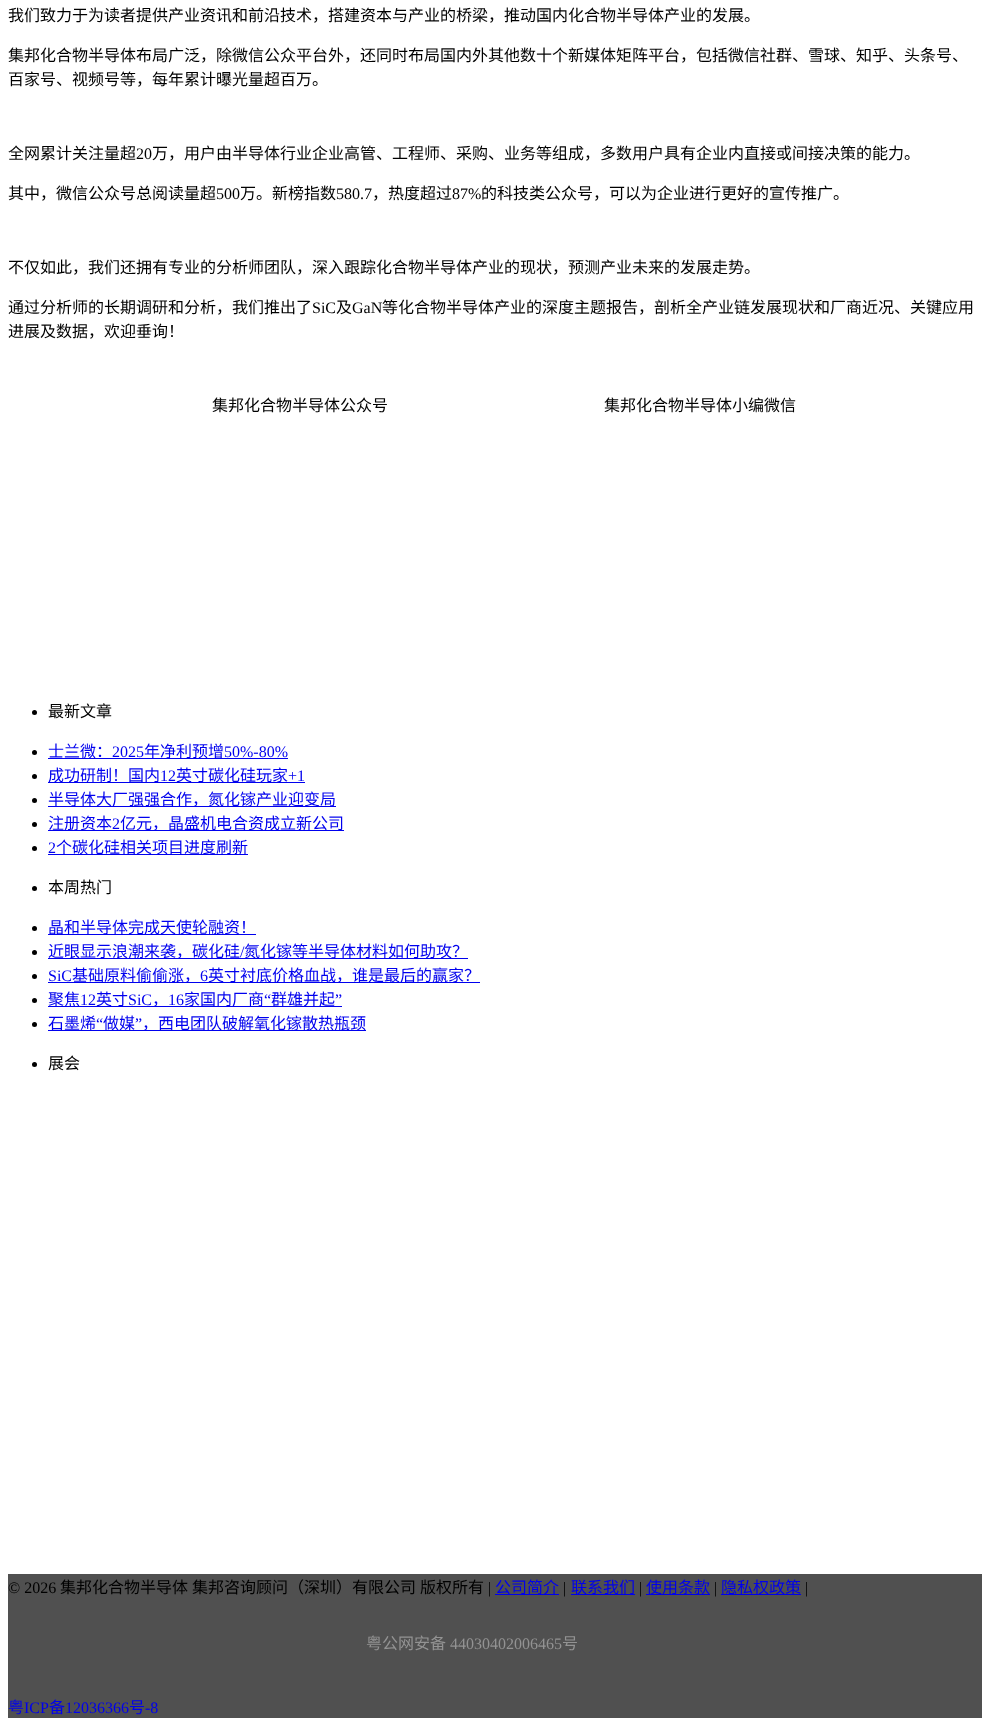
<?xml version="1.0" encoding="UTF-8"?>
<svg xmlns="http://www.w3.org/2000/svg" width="990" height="1734">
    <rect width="100%" height="100%" fill="#FFFFFF"/>
    <text x="8" y="21" font-family="Noto Sans CJK SC" font-size="16" fill="#000000">我们致力于为读者提供产业资讯和前沿技术，搭建资本与产业的桥梁，推动国内化合物半导体产业的发展。</text>
    <text font-family="Noto Sans CJK SC" font-size="16" fill="#000000">
        <tspan x="8" y="61">集邦化合物半导体布局广泛，除微信公众平台外，还同时布局国内外其他数十个新媒体矩阵平台，包括微信社群、雪球、知乎、头条号、</tspan>
        <tspan x="8" y="85">百家号、视频号等，每年累计曝光量超百万。</tspan>
    </text>
    <text x="8" y="159" font-family="Noto Sans CJK SC" font-size="16" fill="#000000">全网累计关注量超</text>
    <text x="136" y="159" font-family="Liberation Serif" font-size="16" fill="#000000">20</text>
    <text x="152" y="159" font-family="Noto Sans CJK SC" font-size="16" fill="#000000">万，用户由半导体行业企业高管、工程师、采购、业务等组成，多数用户具有企业内直接或间接决策的能力。</text>
    <text x="8" y="199" font-family="Noto Sans CJK SC" font-size="16" fill="#000000">其中，微信公众号总阅读量超</text>
    <text x="216" y="199" font-family="Liberation Serif" font-size="16" fill="#000000">500</text>
    <text x="240" y="199" font-family="Noto Sans CJK SC" font-size="16" fill="#000000">万。新榜指数</text>
    <text x="336" y="199" font-family="Liberation Serif" font-size="16" fill="#000000">580.7</text>
    <text x="372" y="199" font-family="Noto Sans CJK SC" font-size="16" fill="#000000">，热度超过</text>
    <text x="452" y="199" font-family="Liberation Serif" font-size="16" fill="#000000">87%</text>
    <text x="481" y="199" font-family="Noto Sans CJK SC" font-size="16" fill="#000000">的科技类公众号，可以为企业进行更好的宣传推广。</text>
    <text x="8" y="273" font-family="Noto Sans CJK SC" font-size="16" fill="#000000">不仅如此，我们还拥有专业的分析师团队，深入跟踪化合物半导体产业的现状，预测产业未来的发展走势。</text>
    <text x="8" y="313" font-family="Noto Sans CJK SC" font-size="16" fill="#000000">通过分析师的长期调研和分析，我们推出了</text>
    <text x="312" y="313" font-family="Liberation Serif" font-size="16" fill="#000000">SiC</text>
    <text x="336" y="313" font-family="Noto Sans CJK SC" font-size="16" fill="#000000">及</text>
    <text x="352" y="313" font-family="Liberation Serif" font-size="16" fill="#000000">GaN</text>
    <text x="382" y="313" font-family="Noto Sans CJK SC" font-size="16" fill="#000000">等化合物半导体产业的深度主题报告，剖析全产业链发展现状和厂商近况、关键应用</text>
    <text x="8" y="337" font-family="Noto Sans CJK SC" font-size="16" fill="#000000">进展及数据，欢迎垂询！</text>
    <text x="212" y="411" font-family="Noto Sans CJK SC" font-size="16" fill="#000000">集邦化合物半导体公众号</text>
    <text x="604" y="411" font-family="Noto Sans CJK SC" font-size="16" fill="#000000">集邦化合物半导体小编微信</text>
    <circle cx="34.5" cy="712.5" r="2.5" fill="#000000"/>
    <text x="48" y="717" font-family="Noto Sans CJK SC" font-size="16" fill="#000000">最新文章</text>
    <circle cx="34.5" cy="752.5" r="2.5" fill="#000000"/>
    <rect x="48" y="758" width="240" height="1" fill="#0000EE"/>
    <text x="48" y="757" font-family="Noto Sans CJK SC" font-size="16" fill="#0000EE">士兰微：</text>
    <text x="112" y="757" font-family="Liberation Serif" font-size="16" fill="#0000EE">2025</text>
    <text x="144" y="757" font-family="Noto Sans CJK SC" font-size="16" fill="#0000EE">年净利预增</text>
    <text x="224" y="757" font-family="Liberation Serif" font-size="16" fill="#0000EE">50%-80%</text>
    <circle cx="34.5" cy="776.5" r="2.5" fill="#000000"/>
    <rect x="48" y="782" width="257" height="1" fill="#0000EE"/>
    <text x="48" y="781" font-family="Noto Sans CJK SC" font-size="16" fill="#0000EE">成功研制！国内</text>
    <text x="160" y="781" font-family="Liberation Serif" font-size="16" fill="#0000EE">12</text>
    <text x="176" y="781" font-family="Noto Sans CJK SC" font-size="16" fill="#0000EE">英寸碳化硅玩家</text>
    <text x="288" y="781" font-family="Liberation Serif" font-size="16" fill="#0000EE">+1</text>
    <circle cx="34.5" cy="800.5" r="2.5" fill="#000000"/>
    <rect x="48" y="806" width="288" height="1" fill="#0000EE"/>
    <text x="48" y="805" font-family="Noto Sans CJK SC" font-size="16" fill="#0000EE">半导体大厂强强合作，氮化镓产业迎变局</text>
    <circle cx="34.5" cy="824.5" r="2.5" fill="#000000"/>
    <rect x="48" y="830" width="296" height="1" fill="#0000EE"/>
    <text x="48" y="829" font-family="Noto Sans CJK SC" font-size="16" fill="#0000EE">注册资本</text>
    <text x="112" y="829" font-family="Liberation Serif" font-size="16" fill="#0000EE">2</text>
    <text x="120" y="829" font-family="Noto Sans CJK SC" font-size="16" fill="#0000EE">亿元，晶盛机电合资成立新公司</text>
    <circle cx="34.5" cy="848.5" r="2.5" fill="#000000"/>
    <text x="48" y="853" font-family="Liberation Serif" font-size="16" fill="#0000EE">2</text>
    <rect x="48" y="854" width="200" height="1" fill="#0000EE"/>
    <text x="56" y="853" font-family="Noto Sans CJK SC" font-size="16" fill="#0000EE">个碳化硅相关项目进度刷新</text>
    <circle cx="34.5" cy="888.5" r="2.5" fill="#000000"/>
    <text x="48" y="893" font-family="Noto Sans CJK SC" font-size="16" fill="#000000">本周热门</text>
    <circle cx="34.5" cy="928.5" r="2.5" fill="#000000"/>
    <rect x="48" y="934" width="208" height="1" fill="#0000EE"/>
    <text x="48" y="933" font-family="Noto Sans CJK SC" font-size="16" fill="#0000EE">晶和半导体完成天使轮融资！</text>
    <circle cx="34.5" cy="952.5" r="2.5" fill="#000000"/>
    <rect x="48" y="958" width="420" height="1" fill="#0000EE"/>
    <text x="48" y="957" font-family="Noto Sans CJK SC" font-size="16" fill="#0000EE">近眼显示浪潮来袭，碳化硅</text>
    <text x="240" y="957" font-family="Liberation Serif" font-size="16" fill="#0000EE">/</text>
    <text x="244" y="957" font-family="Noto Sans CJK SC" font-size="16" fill="#0000EE">氮化镓等半导体材料如何助攻？</text>
    <circle cx="34.5" cy="976.5" r="2.5" fill="#000000"/>
    <text x="48" y="981" font-family="Liberation Serif" font-size="16" fill="#0000EE">SiC</text>
    <rect x="48" y="982" width="432" height="1" fill="#0000EE"/>
    <text x="72" y="981" font-family="Noto Sans CJK SC" font-size="16" fill="#0000EE">基础原料偷偷涨，</text>
    <text x="200" y="981" font-family="Liberation Serif" font-size="16" fill="#0000EE">6</text>
    <text x="208" y="981" font-family="Noto Sans CJK SC" font-size="16" fill="#0000EE">英寸衬底价格血战，谁是最后的赢家？</text>
    <rect x="48" y="1006" width="294" height="1" fill="#0000EE"/>
    <text x="48" y="1005" font-family="Noto Sans CJK SC" font-size="16" fill="#0000EE">聚焦</text>
    <text x="80" y="1005" font-family="Liberation Serif" font-size="16" fill="#0000EE">12</text>
    <text x="96" y="1005" font-family="Noto Sans CJK SC" font-size="16" fill="#0000EE">英寸</text>
    <text x="128" y="1005" font-family="Liberation Serif" font-size="16" fill="#0000EE">SiC</text>
    <text x="168" y="1005" font-family="Liberation Serif" font-size="16" fill="#0000EE">16</text>
    <text x="184" y="1005" font-family="Noto Sans CJK SC" font-size="16" fill="#0000EE">家国内厂商</text>
    <text x="264" y="1005" font-family="Liberation Serif" font-size="16" fill="#0000EE">“</text>
    <text x="271" y="1005" font-family="Noto Sans CJK SC" font-size="16" fill="#0000EE">群雄并起</text>
    <text x="335" y="1005" font-family="Liberation Serif" font-size="16" fill="#0000EE">”</text>
    <circle cx="34.5" cy="1000.5" r="2.5" fill="#000000"/>
    <text x="152" y="1005" font-family="Noto Sans CJK SC" font-size="16" fill="#0000EE">，</text>
    <rect x="48" y="1030" width="318" height="1" fill="#0000EE"/>
    <text x="48" y="1029" font-family="Noto Sans CJK SC" font-size="16" fill="#0000EE">石墨烯</text>
    <text x="96" y="1029" font-family="Liberation Serif" font-size="16" fill="#0000EE">“</text>
    <text x="103" y="1029" font-family="Noto Sans CJK SC" font-size="16" fill="#0000EE">做媒</text>
    <text x="135" y="1029" font-family="Liberation Serif" font-size="16" fill="#0000EE">”</text>
    <text x="142" y="1029" font-family="Noto Sans CJK SC" font-size="16" fill="#0000EE">，西电团队破解氧化镓散热瓶颈</text>
    <circle cx="34.5" cy="1024.5" r="2.5" fill="#000000"/>
    <circle cx="34.5" cy="1064.5" r="2.5" fill="#000000"/>
    <text x="48" y="1069" font-family="Noto Sans CJK SC" font-size="16" fill="#000000">展会</text>
    <rect x="8" y="1574" width="974" height="144" fill="#505050"/>
    <text x="8" y="1593" font-family="Liberation Serif" font-size="16" fill="#000000">© 2026</text>
    <text x="60" y="1593" font-family="Noto Sans CJK SC" font-size="16" fill="#000000">集邦化合物半导体</text>
    <text x="192" y="1593" font-family="Noto Sans CJK SC" font-size="16" fill="#000000">集邦咨询顾问（深圳）有限公司</text>
    <text x="420" y="1593" font-family="Noto Sans CJK SC" font-size="16" fill="#000000">版权所有</text>
    <text x="488" y="1593" font-family="Liberation Serif" font-size="16" fill="#000000">|</text>
    <rect x="495" y="1594" width="64" height="1" fill="#0000EE"/>
    <text x="495" y="1593" font-family="Noto Sans CJK SC" font-size="16" fill="#0000EE">公司简介</text>
    <text x="563" y="1593" font-family="Liberation Serif" font-size="16" fill="#000000">|</text>
    <rect x="571" y="1594" width="64" height="1" fill="#0000EE"/>
    <text x="571" y="1593" font-family="Noto Sans CJK SC" font-size="16" fill="#0000EE">联系我们</text>
    <text x="639" y="1593" font-family="Liberation Serif" font-size="16" fill="#000000">|</text>
    <rect x="646" y="1594" width="64" height="1" fill="#0000EE"/>
    <text x="646" y="1593" font-family="Noto Sans CJK SC" font-size="16" fill="#0000EE">使用条款</text>
    <text x="714" y="1593" font-family="Liberation Serif" font-size="16" fill="#000000">|</text>
    <rect x="721" y="1594" width="80" height="1" fill="#0000EE"/>
    <text x="721" y="1593" font-family="Noto Sans CJK SC" font-size="16" fill="#0000EE">隐私权政策</text>
    <text x="805" y="1593" font-family="Liberation Serif" font-size="16" fill="#000000">|</text>
    <text x="366" y="1649" font-family="Noto Sans CJK SC" font-size="16" fill="#939393">粤公网安备</text>
    <text x="450" y="1649" font-family="Liberation Serif" font-size="16" fill="#939393">44030402006465</text>
    <text x="562" y="1649" font-family="Noto Sans CJK SC" font-size="16" fill="#939393">号</text>
    <text x="8" y="1713" font-family="Noto Sans CJK SC" font-size="16" fill="#0000EE">粤</text>
    <text x="24" y="1713" font-family="Liberation Serif" font-size="16" fill="#0000EE">ICP</text>
    <text x="49" y="1713" font-family="Noto Sans CJK SC" font-size="16" fill="#0000EE">备</text>
    <text x="65" y="1713" font-family="Liberation Serif" font-size="16" fill="#0000EE">12036366</text>
    <text x="129" y="1713" font-family="Noto Sans CJK SC" font-size="16" fill="#0000EE">号</text>
    <text x="145" y="1713" font-family="Liberation Serif" font-size="16" fill="#0000EE">-8</text>
</svg>
